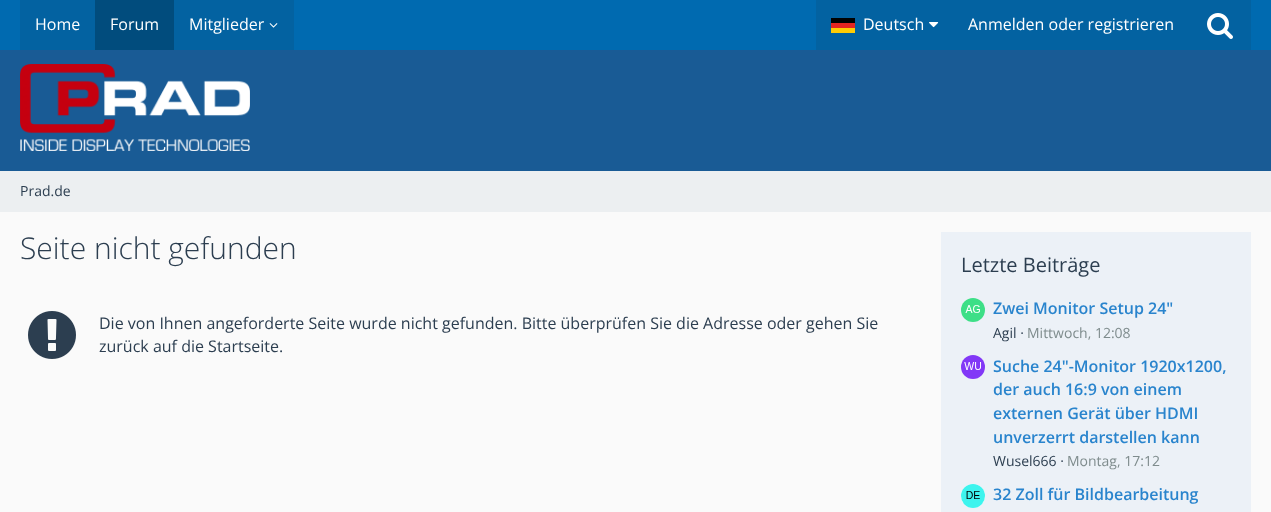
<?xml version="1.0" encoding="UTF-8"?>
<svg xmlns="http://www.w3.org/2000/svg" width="1271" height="512">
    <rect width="100%" height="100%" fill="#FAFAFA"/>
    <rect x="0" y="50" width="1271" height="121" fill="#195B95"/>
    <rect x="0" y="0" width="1271" height="50" fill="#006AB0"/>
    <rect x="20" y="0" width="75" height="50" fill="#0362A1"/>
    <text x="35" y="30" font-family="Open Sans" font-size="16" fill="#FFFFFF">Home</text>
    <rect x="95" y="0" width="79" height="50" fill="#014C7D"/>
    <text x="110" y="30" font-family="Open Sans" font-size="16" fill="#FFFFFF">Forum</text>
    <rect x="174" y="0" width="120" height="50" fill="#0362A1"/>
    <text x="189" y="30" font-family="Open Sans" font-size="16" fill="#FFFFFF">Mitglieder</text>
    <image x="269" y="23" width="9" height="5" href="img_01.png"/>
    <rect x="816" y="0" width="435" height="50" fill="#0362A1"/>
    <rect x="831" y="18" width="24" height="5" fill="#010202"/>
    <rect x="831" y="28" width="24" height="5" fill="#FFCC04"/>
    <rect x="831" y="23" width="24" height="5" fill="#E52420"/>
    <text x="863" y="30" font-family="Open Sans" font-size="16" fill="#FFFFFF">Deutsch</text>
    <image x="929" y="22" width="10" height="6" href="img_02.png"/>
    <text x="968" y="30" font-family="Open Sans" font-size="16" fill="#FFFFFF">Anmelden oder registrieren</text>
    <image x="1207" y="13" width="26" height="26" href="img_03.png"/>
    <image x="20" y="64" width="230" height="87" href="img_04.png"/>
    <rect x="0" y="171" width="1271" height="41" fill="#ECEFF1"/>
    <text x="20" y="196" font-family="Open Sans" font-size="14" fill="#2C3E50">Prad.de</text>
    <text x="20" y="259" font-family="Open Sans" font-size="30" font-weight="300" fill="#2C3E50">Seite nicht gefunden</text>
    <image x="28" y="311" width="48" height="48" href="img_05.png"/>
    <text font-family="Open Sans" font-size="16" fill="#2C3E50">
        <tspan x="99" y="329">Die von Ihnen angeforderte Seite wurde nicht gefunden. Bitte überprüfen Sie die Adresse oder gehen Sie</tspan>
        <tspan x="99" y="352">zurück auf die Startseite.</tspan>
    </text>
    <rect x="941" y="232" width="310" height="280" fill="#ECF1F7"/>
    <text x="961" y="272" font-family="Open Sans" font-size="20" fill="#2C3E50">Letzte Beiträge</text>
    <image x="961" y="298" width="24" height="24" href="img_06.png"/>
    <text x="993" y="314" font-family="Open Sans" font-size="16" font-weight="600" fill="#2984CD">Zwei Monitor Setup 24"</text>
    <text x="993" y="338" font-family="Open Sans" font-size="14" fill="#2C3E50">Agil ·</text>
    <text x="1027" y="338" font-family="Open Sans" font-size="14" fill="#7F8C8D">Mittwoch, 12:08</text>
    <image x="961" y="355" width="24" height="24" href="img_07.png"/>
    <text font-family="Open Sans" font-size="16" font-weight="600" fill="#2984CD">
        <tspan x="993" y="372">Suche 24"-Monitor 1920x1200,</tspan>
        <tspan x="993" y="395">der auch 16:9 von einem</tspan>
        <tspan x="993" y="419">externen Gerät über HDMI</tspan>
        <tspan x="993" y="443">unverzerrt darstellen kann</tspan>
    </text>
    <text x="993" y="466" font-family="Open Sans" font-size="14" fill="#2C3E50">Wusel666 ·</text>
    <text x="1067" y="466" font-family="Open Sans" font-size="14" fill="#7F8C8D">Montag, 17:12</text>
    <circle cx="973" cy="496" r="12" fill="#FFFFFF"/>
    <image x="961" y="484" width="24" height="24" href="img_08.png"/>
    <text x="993" y="500" font-family="Open Sans" font-size="16" font-weight="600" fill="#2984CD">32 Zoll für Bildbearbeitung</text>
</svg>
